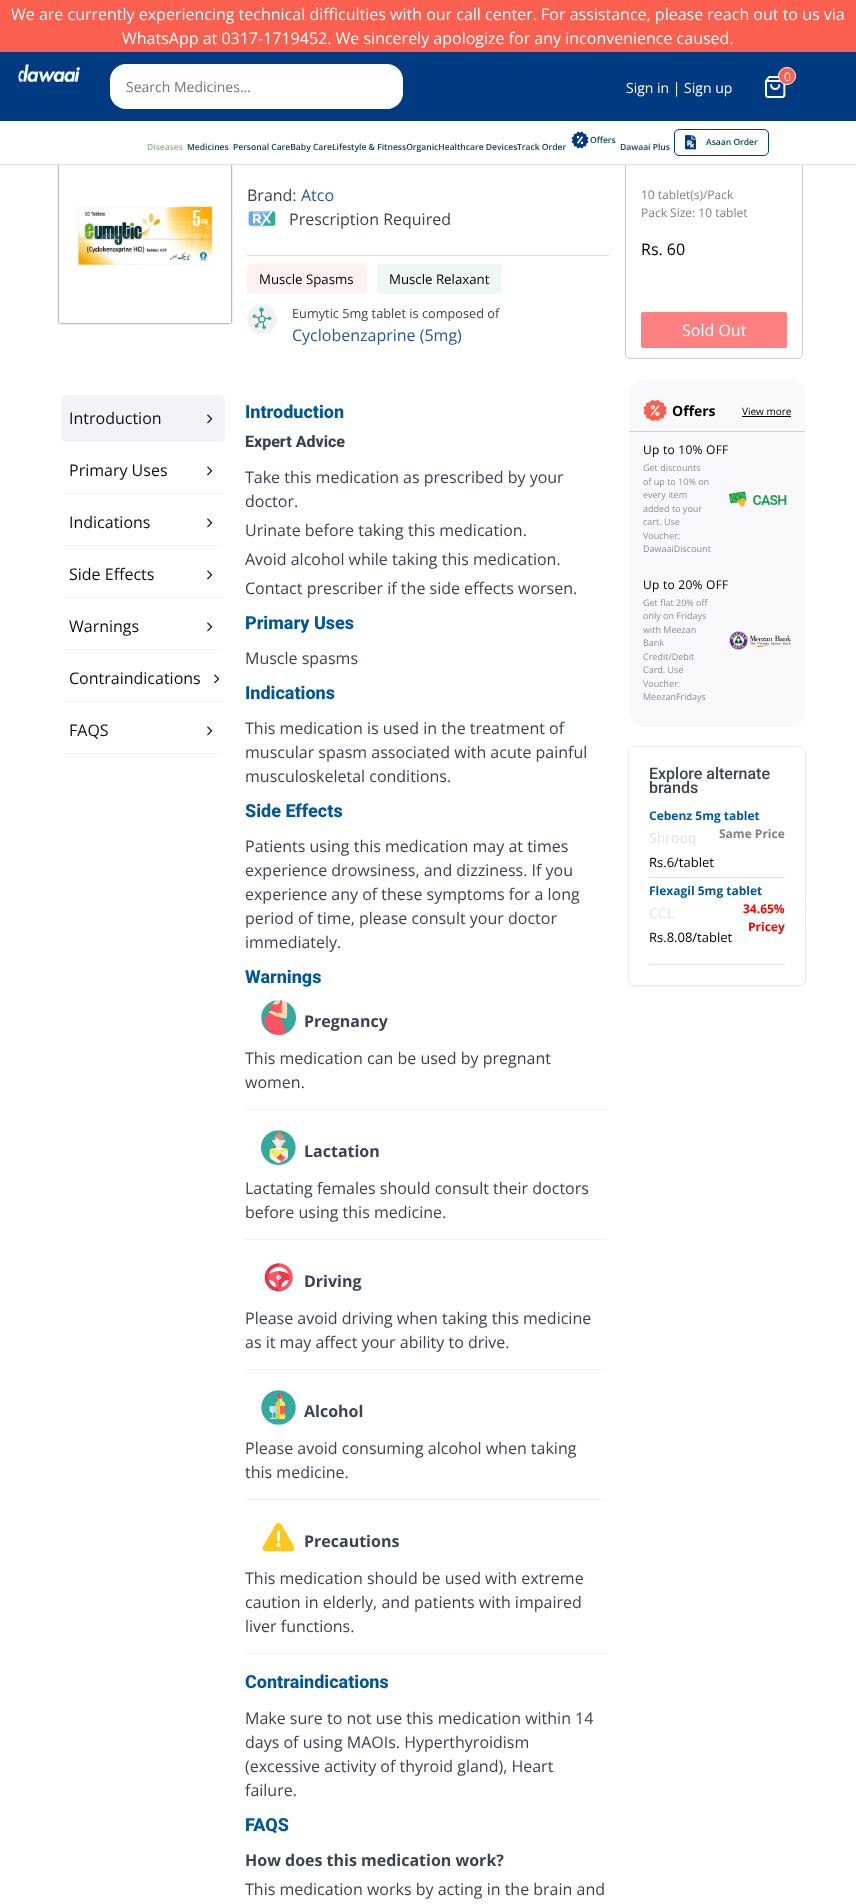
<?xml version="1.0" encoding="UTF-8"?>
<svg xmlns="http://www.w3.org/2000/svg" width="856" height="1904">
    <defs>
        <clipPath id="clip1"><path d="M 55 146 H 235 V 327 H 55 Z M 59 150 H 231 V 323 H 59 Z" clip-rule="evenodd"/></clipPath>
        <filter id="blur1" x="-50%" y="-200%" width="200%" height="500%"><feGaussianBlur stdDeviation="1"/></filter>
    </defs>
    <rect width="100%" height="100%" fill="#FFFFFF"/>
    <rect x="0" y="0" width="856" height="52" fill="#FB5F50"/>
    <text x="11" y="20" font-family="Open Sans" font-size="16" fill="#FFFFFF">We are currently experiencing technical difficulties with our call center. For assistance, please reach out to us via</text>
    <text x="122" y="44" font-family="Open Sans" font-size="16" fill="#FFFFFF">WhatsApp at 0317-1719452. We sincerely apologize for any inconvenience caused.</text>
    <rect x="0" y="52" width="856" height="69" fill="#003B82"/>
    <image x="18" y="64" width="62" height="18" href="img_01.png"/>
    <rect x="110" y="64" width="293" height="45" rx="16" fill="#FFFFFF"/>
    <text x="126" y="92" font-family="Open Sans" font-size="14" fill="#757575">Search Medicines...</text>
    <image x="765" y="76" width="21" height="22" href="img_02.png"/>
    <circle cx="787" cy="76" r="8.5" fill="#FB5F50" stroke="#FFFFFF"/>
    <text x="784" y="81" font-family="Open Sans" font-size="12" fill="#FFFFFF">0</text>
    <text x="626" y="93" font-family="Open Sans" font-size="14" fill="#FFFFFF">Sign in | Sign up</text>
    <g clip-path="url(#clip1)">
        <rect x="59" y="150" width="172" height="173" fill="#333333" filter="url(#blur1)"/>
    </g>
    <rect x="625.5" y="150.5" width="177" height="208" rx="4.5" fill="none" stroke="#CCCCCC"/>
    <rect x="57" y="148" width="746" height="16" fill="#FFFFFF"/>
    <rect x="0" y="164" width="856" height="1" fill="#DADEE7"/>
    <image x="571" y="131" width="18" height="18" href="img_03.png"/>
    <text x="590" y="143" font-family="Open Sans" font-size="8.55" font-weight="600" fill="#023D53">Offers</text>
    <rect x="674.5" y="129.5" width="94" height="26" rx="4.5" fill="none" stroke="#003B82"/>
    <image x="685" y="135" width="11" height="15" href="img_04.png"/>
    <text x="706" y="145" font-family="Open Sans" font-size="8.55" font-weight="600" fill="#023D53">Asaan Order</text>
    <text x="147" y="150" font-family="Open Sans" font-size="8.55" font-weight="600" fill="#86B98C">Diseases</text>
    <text x="187" y="150" font-family="Open Sans" font-size="8.55" font-weight="600" fill="#023D53">Medicines</text>
    <text x="233" y="150" font-family="Open Sans" font-size="8.55" font-weight="600" fill="#023D53">Personal CareBaby CareLifestyle &amp; FitnessOrganicHealthcare Devices</text>
    <text x="517" y="150" font-family="Open Sans" font-size="8.55" font-weight="600" fill="#023D53">Track Order</text>
    <text x="620" y="150" font-family="Open Sans" font-size="8.55" font-weight="600" fill="#023D53">Dawaai Plus</text>
    <image x="78" y="206" width="135" height="59" href="img_05.png"/>
    <text x="247" y="201" font-family="Open Sans" font-size="16" fill="#3B4351">Brand:</text>
    <text x="301" y="201" font-family="Open Sans" font-size="16" fill="#2A579B">Atco</text>
    <image x="248" y="209" width="28" height="19" href="img_06.png"/>
    <text x="289" y="225" font-family="Open Sans" font-size="16" fill="#3B4351">Prescription Required</text>
    <rect x="247" y="255" width="362" height="1" fill="#DADEE4"/>
    <rect x="247" y="264" width="120" height="30" rx="4" fill="#FFF1F0"/>
    <text x="259" y="284" font-family="Open Sans" font-size="13.25" fill="#000000">Muscle Spasms</text>
    <rect x="377" y="264" width="125" height="30" rx="4" fill="#EDF7F6"/>
    <text x="389" y="284" font-family="Open Sans" font-size="13.25" fill="#000000">Muscle Relaxant</text>
    <image x="247" y="304" width="30" height="30" href="img_07.png"/>
    <text x="292" y="318" font-family="Open Sans" font-size="12.75" fill="#3B4351">Eumytic 5mg tablet is composed of</text>
    <text x="292" y="341" font-family="Open Sans" font-size="16" fill="#2A579B">Cyclobenzaprine (5mg)</text>
    <text font-family="Open Sans" font-size="12" fill="#828282">
        <tspan x="641" y="199">10 tablet(s)/Pack</tspan>
        <tspan x="641" y="217">Pack Size: 10 tablet</tspan>
    </text>
    <text x="641" y="255" font-family="Open Sans" font-size="16" fill="#000000">Rs. 60</text>
    <rect x="641" y="312" width="146" height="36" rx="2" fill="#FF8080"/>
    <text x="682" y="336" font-family="Open Sans" font-size="16" fill="#FFFFFF">Sold Out</text>
    <rect x="61" y="395" width="164" height="47" rx="5" fill="#F3F3F7"/>
    <rect x="64" y="441" width="159" height="1" fill="#F3F3F7"/>
    <text x="69" y="424" font-family="Open Sans" font-size="16" fill="#0F0F0F">Introduction</text>
    <image x="207" y="414" width="6" height="10" href="img_08.png"/>
    <rect x="64" y="493" width="159" height="1" fill="#F3F3F7"/>
    <text x="69" y="476" font-family="Open Sans" font-size="16" fill="#0F0F0F">Primary Uses</text>
    <image x="207" y="466" width="6" height="10" href="img_09.png"/>
    <rect x="64" y="545" width="159" height="1" fill="#F3F3F7"/>
    <text x="69" y="528" font-family="Open Sans" font-size="16" fill="#0F0F0F">Indications</text>
    <image x="207" y="518" width="6" height="10" href="img_09.png"/>
    <rect x="64" y="597" width="159" height="1" fill="#F3F3F7"/>
    <text x="69" y="580" font-family="Open Sans" font-size="16" fill="#0F0F0F">Side Effects</text>
    <image x="207" y="570" width="6" height="10" href="img_09.png"/>
    <rect x="64" y="649" width="159" height="1" fill="#F3F3F7"/>
    <text x="69" y="632" font-family="Open Sans" font-size="16" fill="#0F0F0F">Warnings</text>
    <image x="207" y="622" width="6" height="10" href="img_09.png"/>
    <rect x="64" y="701" width="159" height="1" fill="#F3F3F7"/>
    <text x="69" y="684" font-family="Open Sans" font-size="16" fill="#0F0F0F">Contraindications</text>
    <image x="214" y="674" width="6" height="10" href="img_09.png"/>
    <rect x="64" y="753" width="159" height="1" fill="#F3F3F7"/>
    <text x="69" y="736" font-family="Open Sans" font-size="16" fill="#0F0F0F">FAQS</text>
    <image x="207" y="726" width="6" height="10" href="img_09.png"/>
    <text x="245" y="418" font-family="Roboto" font-size="18" font-weight="800" fill="#01569B">Introduction</text>
    <text x="245" y="447" font-family="Roboto" font-size="16" font-weight="800" fill="#3B4351">Expert Advice</text>
    <text font-family="Open Sans" font-size="16" fill="#3B4351">
        <tspan x="245" y="483">Take this medication as prescribed by your</tspan>
        <tspan x="245" y="507">doctor.</tspan>
        <tspan x="245" y="536">Urinate before taking this medication.</tspan>
        <tspan x="245" y="565">Avoid alcohol while taking this medication.</tspan>
        <tspan x="245" y="594">Contact prescriber if the side effects worsen.</tspan>
    </text>
    <text x="245" y="629" font-family="Roboto" font-size="18" font-weight="800" fill="#01569B">Primary Uses</text>
    <text x="245" y="664" font-family="Open Sans" font-size="16" fill="#3B4351">Muscle spasms</text>
    <text x="245" y="699" font-family="Roboto" font-size="18" font-weight="800" fill="#01569B">Indications</text>
    <text font-family="Open Sans" font-size="16" fill="#3B4351">
        <tspan x="245" y="734">This medication is used in the treatment of</tspan>
        <tspan x="245" y="758">muscular spasm associated with acute painful</tspan>
        <tspan x="245" y="782">musculoskeletal conditions.</tspan>
    </text>
    <text x="245" y="817" font-family="Roboto" font-size="18" font-weight="800" fill="#01569B">Side Effects</text>
    <text font-family="Open Sans" font-size="16" fill="#3B4351">
        <tspan x="245" y="852">Patients using this medication may at times</tspan>
        <tspan x="245" y="876">experience drowsiness, and dizziness. If you</tspan>
        <tspan x="245" y="900">experience any of these symptoms for a long</tspan>
        <tspan x="245" y="924">period of time, please consult your doctor</tspan>
        <tspan x="245" y="948">immediately.</tspan>
    </text>
    <text x="245" y="983" font-family="Roboto" font-size="18" font-weight="800" fill="#01569B">Warnings</text>
    <rect x="245" y="1109" width="362" height="1" fill="#F3F3F7"/>
    <image x="261" y="1000" width="35" height="35" href="img_10.png"/>
    <text x="304" y="1027" font-family="Open Sans" font-size="16" font-weight="700" fill="#3B4351">Pregnancy</text>
    <text font-family="Open Sans" font-size="16" fill="#3B4351">
        <tspan x="245" y="1064">This medication can be used by pregnant</tspan>
        <tspan x="245" y="1088">women.</tspan>
    </text>
    <rect x="245" y="1239" width="362" height="1" fill="#F3F3F7"/>
    <image x="261" y="1130" width="35" height="35" href="img_11.png"/>
    <text x="304" y="1157" font-family="Open Sans" font-size="16" font-weight="700" fill="#3B4351">Lactation</text>
    <text font-family="Open Sans" font-size="16" fill="#3B4351">
        <tspan x="245" y="1194">Lactating females should consult their doctors</tspan>
        <tspan x="245" y="1218">before using this medicine.</tspan>
    </text>
    <rect x="245" y="1369" width="362" height="1" fill="#F3F3F7"/>
    <image x="264" y="1263" width="29" height="29" href="img_12.png"/>
    <text x="304" y="1287" font-family="Open Sans" font-size="16" font-weight="700" fill="#3B4351">Driving</text>
    <text font-family="Open Sans" font-size="16" fill="#3B4351">
        <tspan x="245" y="1324">Please avoid driving when taking this medicine</tspan>
        <tspan x="245" y="1348">as it may affect your ability to drive.</tspan>
    </text>
    <rect x="245" y="1499" width="362" height="1" fill="#F3F3F7"/>
    <image x="261" y="1390" width="35" height="35" href="img_13.png"/>
    <text x="304" y="1417" font-family="Open Sans" font-size="16" font-weight="700" fill="#3B4351">Alcohol</text>
    <text font-family="Open Sans" font-size="16" fill="#3B4351">
        <tspan x="245" y="1454">Please avoid consuming alcohol when taking</tspan>
        <tspan x="245" y="1478">this medicine.</tspan>
    </text>
    <rect x="245" y="1653" width="362" height="1" fill="#F3F3F7"/>
    <image x="262" y="1522" width="33" height="30" href="img_14.png"/>
    <text x="304" y="1547" font-family="Open Sans" font-size="16" font-weight="700" fill="#3B4351">Precautions</text>
    <text font-family="Open Sans" font-size="16" fill="#3B4351">
        <tspan x="245" y="1584">This medication should be used with extreme</tspan>
        <tspan x="245" y="1608">caution in elderly, and patients with impaired</tspan>
        <tspan x="245" y="1632">liver functions.</tspan>
    </text>
    <text x="245" y="1688" font-family="Roboto" font-size="18" font-weight="800" fill="#01569B">Contraindications</text>
    <text font-family="Open Sans" font-size="16" fill="#3B4351">
        <tspan x="245" y="1724">Make sure to not use this medication within 14</tspan>
        <tspan x="245" y="1748">days of using MAOIs. Hyperthyroidism</tspan>
        <tspan x="245" y="1772">(excessive activity of thyroid gland), Heart</tspan>
        <tspan x="245" y="1796">failure.</tspan>
    </text>
    <text x="245" y="1831" font-family="Roboto" font-size="18" font-weight="800" fill="#01569B">FAQS</text>
    <text x="245" y="1866" font-family="Open Sans" font-size="16" font-weight="700" fill="#3B4351">How does this medication work?</text>
    <text x="245" y="1895" font-family="Open Sans" font-size="16" fill="#3B4351">This medication works by acting in the brain and</text>
    <rect x="629" y="379" width="176" height="348" rx="15" fill="#F9F9FC"/>
    <rect x="629" y="431" width="176" height="1" fill="#CAD0DE"/>
    <image x="643" y="400" width="24" height="21" href="img_15.png"/>
    <text x="672" y="416" font-family="Open Sans" font-size="14" font-weight="700" fill="#000000">Offers</text>
    <text x="742" y="415" font-family="Open Sans" font-size="10" fill="#000000">View more</text>
    <rect x="742" y="416" width="49" height="1" fill="#000000"/>
    <text x="643" y="454" font-family="Open Sans" font-size="12" letter-spacing="0.25" fill="#000000">Up to 10% OFF</text>
    <text font-family="Open Sans" font-size="9" fill="#878CA3">
        <tspan x="643" y="471">Get discounts</tspan>
        <tspan x="643" y="485">of up to 10% on</tspan>
        <tspan x="643" y="498">every item</tspan>
        <tspan x="643" y="512">added to your</tspan>
        <tspan x="643" y="525">cart. Use</tspan>
        <tspan x="643" y="539">Voucher:</tspan>
        <tspan x="643" y="552">DawaaiDiscount</tspan>
    </text>
    <image x="729" y="491" width="58" height="16" href="img_16.png"/>
    <text x="643" y="589" font-family="Open Sans" font-size="12" letter-spacing="0.25" fill="#000000">Up to 20% OFF</text>
    <text font-family="Open Sans" font-size="9" fill="#878CA3">
        <tspan x="643" y="606">Get flat 20% off</tspan>
        <tspan x="643" y="619">only on Fridays</tspan>
        <tspan x="643" y="633">with Meezan</tspan>
        <tspan x="643" y="646">Bank</tspan>
        <tspan x="643" y="660">Credit/Debit</tspan>
        <tspan x="643" y="673">Card. Use</tspan>
        <tspan x="643" y="687">Voucher:</tspan>
        <tspan x="643" y="700">MeezanFridays</tspan>
    </text>
    <image x="729" y="631" width="62" height="19" href="img_17.png"/>
    <rect x="628.5" y="746.5" width="177" height="239" rx="6.5" fill="none" stroke="#ECECEC"/>
    <rect x="629" y="748" width="176" height="238" rx="6" fill="#000000" fill-opacity="0.05" filter="url(#blur1)"/>
    <rect x="629" y="747" width="176" height="238" rx="6" fill="#FFFFFF"/>
    <text font-family="Roboto" font-size="16" font-weight="500" fill="#3B4351">
        <tspan x="649" y="779">Explore alternate</tspan>
        <tspan x="649" y="793">brands</tspan>
    </text>
    <rect x="649" y="877" width="136" height="1" fill="#E1E1E1"/>
    <text x="649" y="820" font-family="Open Sans" font-size="12" font-weight="700" fill="#01569B">Cebenz 5mg tablet</text>
    <text x="649" y="843" font-family="Open Sans" font-size="14" fill="#E1E1E1">Shrooq</text>
    <text x="719" y="838" font-family="Open Sans" font-size="12" font-weight="700" fill="#828282">Same Price</text>
    <text x="649" y="867" font-family="Open Sans" font-size="13" fill="#000000">Rs.6/tablet</text>
    <rect x="649" y="964" width="136" height="1" fill="#E1E1E1"/>
    <text x="649" y="895" font-family="Open Sans" font-size="12" font-weight="700" fill="#01569B">Flexagil 5mg tablet</text>
    <text x="649" y="918" font-family="Open Sans" font-size="14" fill="#E1E1E1">CCL</text>
    <text x="743" y="913" font-family="Open Sans" font-size="12" font-weight="700" fill="#FF0000">34.65%</text>
    <text x="748" y="931" font-family="Open Sans" font-size="12" font-weight="700" fill="#FF0000">Pricey</text>
    <text x="649" y="942" font-family="Open Sans" font-size="13" fill="#000000">Rs.8.08/tablet</text>
</svg>
